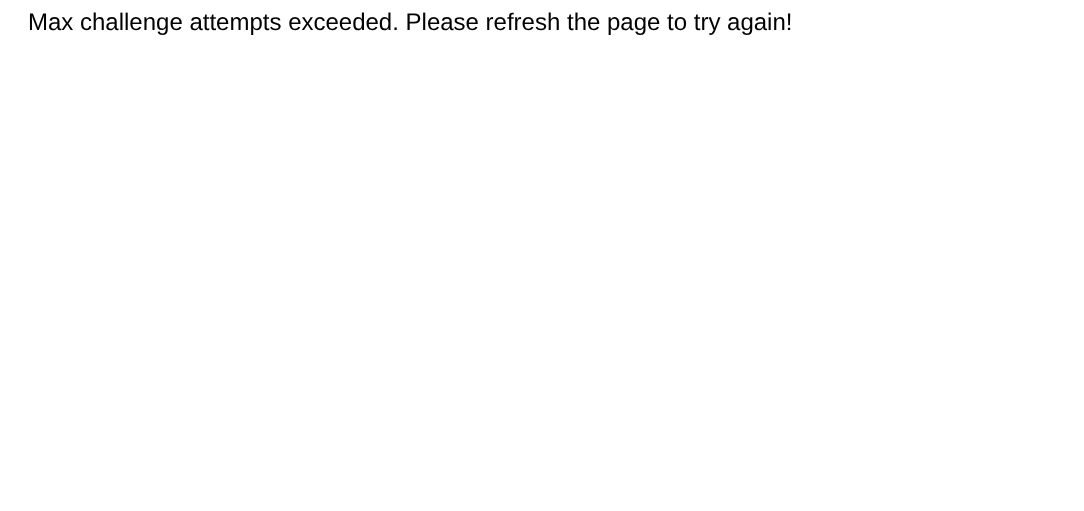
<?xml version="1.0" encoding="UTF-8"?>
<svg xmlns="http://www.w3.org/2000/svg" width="1084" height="511">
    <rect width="100%" height="100%" fill="#FFFFFF"/>
    <text x="28" y="30" font-family="Liberation Sans" font-size="24" fill="#000000">Max challenge attempts exceeded. Please refresh the page to try again!</text>
</svg>
